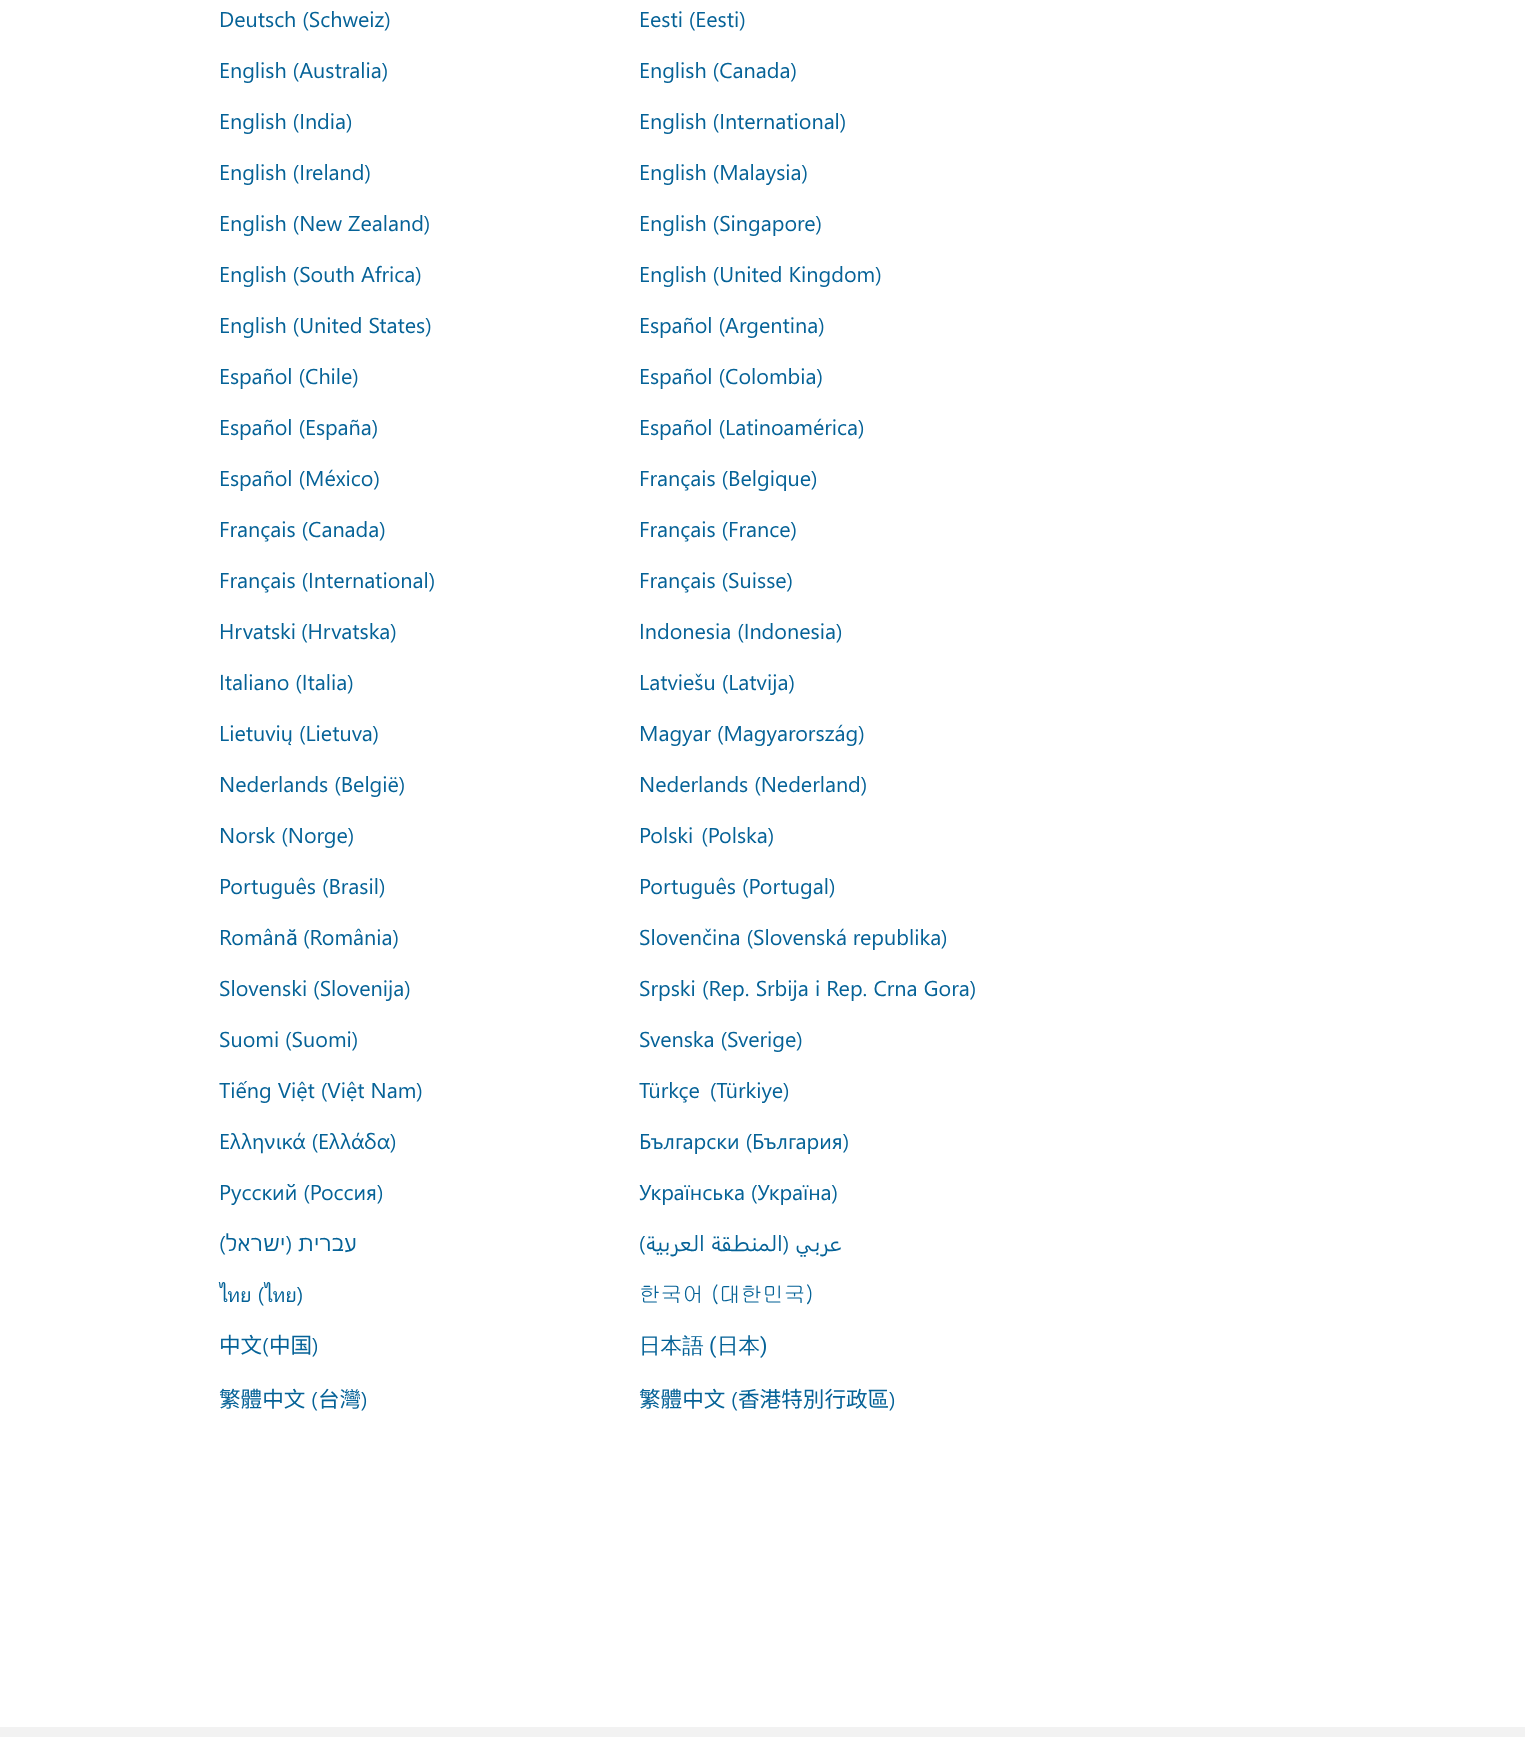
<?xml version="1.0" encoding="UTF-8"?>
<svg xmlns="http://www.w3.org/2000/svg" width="1525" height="1737">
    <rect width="100%" height="100%" fill="#FFFFFF"/>
    <text x="219" y="27" font-family="Segoe UI" font-size="21.6" fill="#056297">Deutsch (Schweiz)</text>
    <text x="639" y="27" font-family="'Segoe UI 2'" font-size="21.6" fill="#056297">Eesti (Eesti)</text>
    <text x="219" y="78" font-family="Segoe UI" font-size="21.6" fill="#056297">English (Australia)</text>
    <text x="639" y="78" font-family="Segoe UI" font-size="21.6" fill="#056297">English (Canada)</text>
    <text x="219" y="129" font-family="Segoe UI" font-size="21.6" fill="#056297">English (India)</text>
    <text x="639" y="129" font-family="Segoe UI" font-size="21.6" fill="#056297">English (International)</text>
    <text x="219" y="180" font-family="Segoe UI" font-size="21.6" fill="#056297">English (Ireland)</text>
    <text x="639" y="180" font-family="Segoe UI" font-size="21.6" fill="#056297">English (Malaysia)</text>
    <text x="219" y="231" font-family="Segoe UI" font-size="21.6" fill="#056297">English (New Zealand)</text>
    <text x="639" y="231" font-family="Segoe UI" font-size="21.6" fill="#056297">English (Singapore)</text>
    <text x="219" y="282" font-family="Segoe UI" font-size="21.6" fill="#056297">English (South Africa)</text>
    <text x="639" y="282" font-family="Segoe UI" font-size="21.6" fill="#056297">English (United Kingdom)</text>
    <text x="219" y="333" font-family="Segoe UI" font-size="21.6" fill="#056297">English (United States)</text>
    <text x="639" y="333" font-family="Segoe UI" font-size="21.6" fill="#056297">Español (Argentina)</text>
    <text x="219" y="384" font-family="Segoe UI" font-size="21.6" fill="#056297">Español (Chile)</text>
    <text x="639" y="384" font-family="Segoe UI" font-size="21.6" fill="#056297">Español (Colombia)</text>
    <text x="219" y="435" font-family="Segoe UI" font-size="21.6" fill="#056297">Español (España)</text>
    <text x="639" y="435" font-family="Segoe UI" font-size="21.6" fill="#056297">Español (Latinoamérica)</text>
    <text x="219" y="486" font-family="Segoe UI" font-size="21.6" fill="#056297">Español (México)</text>
    <text x="639" y="486" font-family="Segoe UI" font-size="21.6" fill="#056297">Français (Belgique)</text>
    <text x="219" y="537" font-family="Segoe UI" font-size="21.6" fill="#056297">Français (Canada)</text>
    <text x="639" y="537" font-family="Segoe UI" font-size="21.6" fill="#056297">Français (France)</text>
    <text x="219" y="588" font-family="Segoe UI" font-size="21.6" fill="#056297">Français (International)</text>
    <text x="639" y="588" font-family="Segoe UI" font-size="21.6" fill="#056297">Français (Suisse)</text>
    <text x="219" y="639" word-spacing="-1" font-family="'Segoe UI 2'" font-size="21.6" fill="#056297">Hrvatski (Hrvatska)</text>
    <text x="639" y="639" font-family="Segoe UI" font-size="21.6" fill="#056297">Indonesia (Indonesia)</text>
    <text x="219" y="690" font-family="Segoe UI" font-size="21.6" fill="#056297">Italiano (Italia)</text>
    <text x="639" y="690" font-family="'Segoe UI 2'" font-size="21.6" fill="#056297">Latviešu (Latvija)</text>
    <text x="219" y="741" font-family="'Segoe UI 2'" font-size="21.6" fill="#056297">Lietuvių (Lietuva)</text>
    <text x="639" y="741" font-family="'Segoe UI 2'" font-size="21.6" fill="#056297">Magyar (Magyarország)</text>
    <text x="219" y="792" font-family="Segoe UI" font-size="21.6" fill="#056297">Nederlands (België)</text>
    <text x="639" y="792" font-family="Segoe UI" font-size="21.6" fill="#056297">Nederlands (Nederland)</text>
    <text x="219" y="843" font-family="Segoe UI" font-size="21.6" fill="#056297">Norsk (Norge)</text>
    <text x="639" y="843" word-spacing="2" font-family="'Segoe UI 2'" font-size="21.6" fill="#056297">Polski (Polska)</text>
    <text x="219" y="894" font-family="Segoe UI" font-size="21.6" fill="#056297">Português (Brasil)</text>
    <text x="639" y="894" font-family="Segoe UI" font-size="21.6" fill="#056297">Português (Portugal)</text>
    <text x="219" y="945" font-family="Segoe UI" font-size="21.6" fill="#056297">Român</text>
    <text x="286" y="945" font-family="Roboto" font-size="21.6" fill="#056297">ă</text>
    <text x="303" y="945" font-family="Segoe UI" font-size="21.6" fill="#056297">(România)</text>
    <text x="639" y="945" font-family="'Segoe UI 2'" font-size="21.6" fill="#056297">Slovenčina (Slovenská republika)</text>
    <text x="219" y="996" font-family="Segoe UI" font-size="21.6" fill="#056297">Slovenski (Slovenija)</text>
    <text x="639" y="996" word-spacing="0.25" font-family="'Segoe UI 2'" font-size="21.6" fill="#056297">Srpski (Rep. Srbija i Rep. Crna Gora)</text>
    <text x="219" y="1047" font-family="Segoe UI" font-size="21.6" fill="#056297">Suomi (Suomi)</text>
    <text x="639" y="1047" font-family="Segoe UI" font-size="21.6" fill="#056297">Svenska (Sverige)</text>
    <text x="219" y="1098" font-family="'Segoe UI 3'" font-size="21.6" fill="#056297">Tiếng Việt (Việt Nam)</text>
    <text x="639" y="1098" word-spacing="4" font-family="'Segoe UI 2'" font-size="21.6" fill="#056297">Türkçe (Türkiye)</text>
    <text x="219" y="1149" font-family="'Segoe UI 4'" font-size="21.6" fill="#056297">Ελληνικά (Ελλάδα)</text>
    <text x="639" y="1149" font-family="'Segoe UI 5'" font-size="21.6" fill="#056297">Български (България)</text>
    <text x="219" y="1200" font-family="'Segoe UI 5'" font-size="21.6" fill="#056297">Русский (Россия)</text>
    <text x="639" y="1200" font-family="'Segoe UI 5'" font-size="21.6" fill="#056297">Українська (Україна)</text>
    <text x="357" y="1251" font-family="'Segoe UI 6'" font-size="21.6" direction="rtl" fill="#056297">עברית (ישראל)</text>
    <text x="842" y="1251" font-family="'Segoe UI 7'" font-size="21.6" direction="rtl" fill="#056297">عربي (المنطقة العربية)</text>
    <text x="219" y="1302" font-family="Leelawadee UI" font-size="21.6" fill="#056297">ไทย (ไทย)</text>
    <text x="639" y="1302" font-family="Gulim" font-size="21.6" fill="#056297">한국어 (대한민국)</text>
    <text x="219" y="1353" font-family="Noto Sans CJK SC" font-size="21.6" fill="#056297">中文</text>
    <text x="262" y="1353" font-family="Segoe UI" font-size="21.6" fill="#056297">(</text>
    <text x="269" y="1353" font-family="Noto Sans CJK SC" font-size="21.6" fill="#056297">中国</text>
    <text x="312" y="1353" font-family="Segoe UI" font-size="21.6" fill="#056297">)</text>
    <text x="639" y="1353" font-family="WenQuanYi Zen Hei" font-size="21.6" font-weight="500" fill="#056297">日本語</text>
    <text x="709" y="1353" font-family="Roboto" font-size="21.6" fill="#056297">(</text>
    <text x="717" y="1353" font-family="WenQuanYi Zen Hei" font-size="21.6" font-weight="500" fill="#056297">日本</text>
    <text x="760" y="1353" font-family="Roboto" font-size="21.6" fill="#056297">)</text>
    <text x="219" y="1407" font-family="Noto Sans CJK TC" font-size="21.6" fill="#056297">繁體中文</text>
    <text x="311" y="1407" font-family="Segoe UI" font-size="21.6" fill="#056297">(</text>
    <text x="318" y="1407" font-family="Noto Sans CJK TC" font-size="21.6" fill="#056297">台灣</text>
    <text x="361" y="1407" font-family="Segoe UI" font-size="21.6" fill="#056297">)</text>
    <text x="639" y="1407" font-family="Noto Sans CJK TC" font-size="21.6" fill="#056297">繁體中文</text>
    <text x="731" y="1407" font-family="Segoe UI" font-size="21.6" fill="#056297">(</text>
    <text x="738" y="1407" font-family="Noto Sans CJK TC" font-size="21.6" fill="#056297">香港特別行政區</text>
    <text x="889" y="1407" font-family="Segoe UI" font-size="21.6" fill="#056297">)</text>
    <rect x="0" y="1727" width="1525" height="10" fill="#F2F2F2"/>
</svg>
